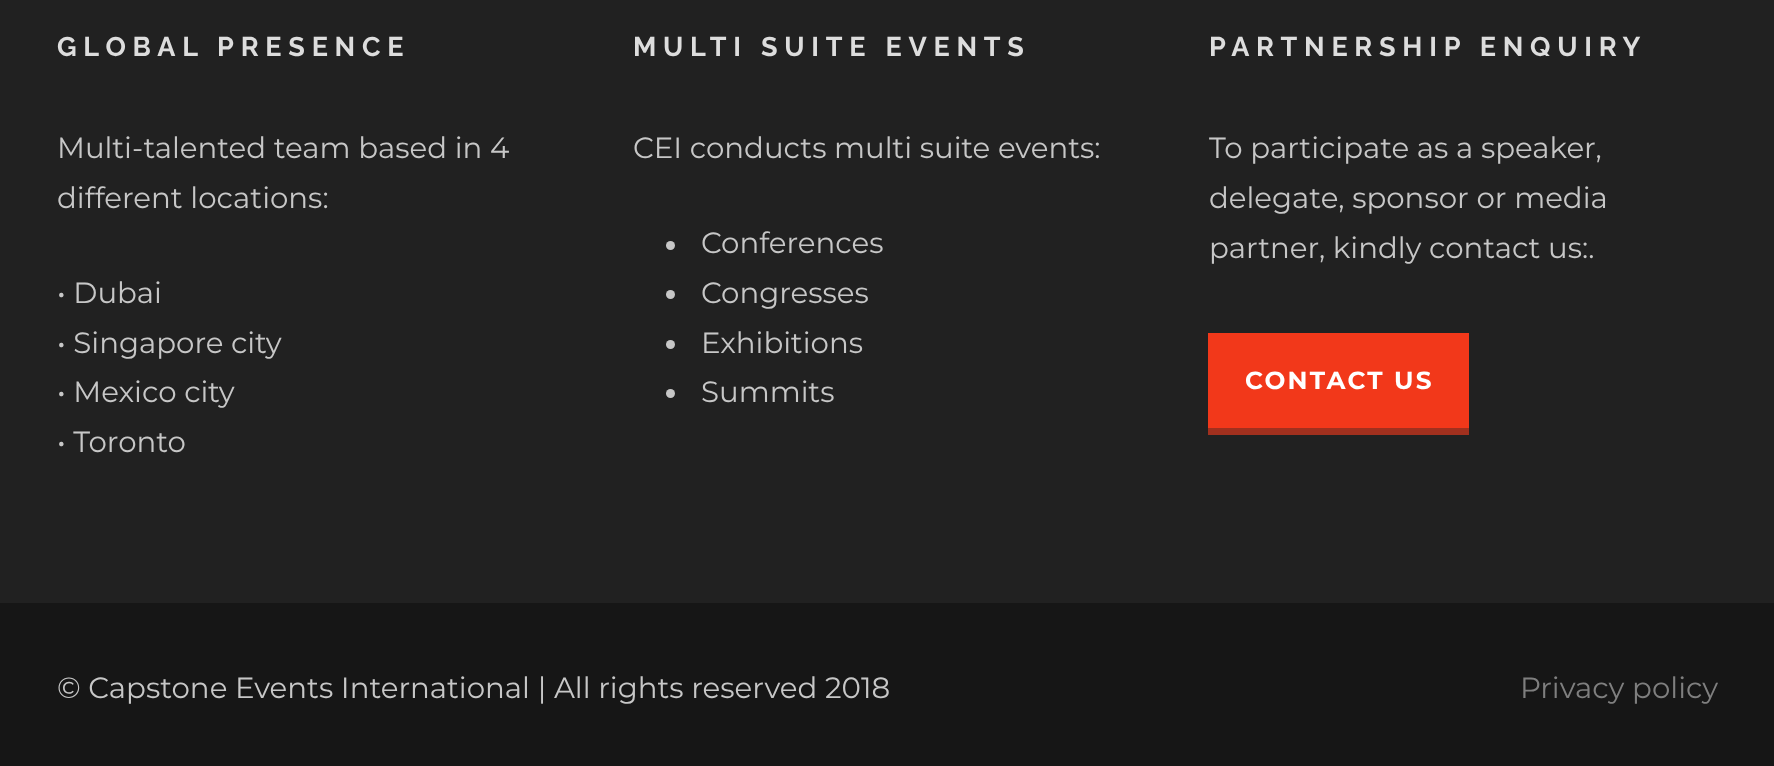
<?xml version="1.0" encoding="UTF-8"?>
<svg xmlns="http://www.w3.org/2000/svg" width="1774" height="766">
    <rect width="100%" height="100%" fill="#212121"/>
    <text x="57" y="56" font-family="Raleway" font-size="27" font-weight="700" letter-spacing="6.75" fill="#DDDDDD">GLOBAL PRESENCE</text>
    <text font-family="Montserrat" font-size="29.25" fill="#C7C7C7">
        <tspan x="57" y="158">Multi-talented team based in 4</tspan>
        <tspan x="57" y="208">different locations:</tspan>
    </text>
    <text font-family="Montserrat" font-size="29.25" fill="#C7C7C7">
        <tspan x="57" y="303">• Dubai</tspan>
        <tspan x="57" y="353">• Singapore city</tspan>
        <tspan x="57" y="402">• Mexico city</tspan>
        <tspan x="57" y="452">• Toronto</tspan>
    </text>
    <text x="633" y="56" font-family="Raleway" font-size="27" font-weight="700" letter-spacing="6.75" fill="#DDDDDD">MULTI SUITE EVENTS</text>
    <text x="633" y="158" font-family="Montserrat" font-size="29.25" fill="#C7C7C7">CEI conducts multi suite events:</text>
    <circle cx="670.5" cy="245.5" r="4.5" fill="#C7C7C7"/>
    <text x="701" y="253" font-family="Montserrat" font-size="29.25" fill="#C7C7C7">Conferences</text>
    <circle cx="670.5" cy="294.5" r="4.5" fill="#C7C7C7"/>
    <text x="701" y="303" font-family="Montserrat" font-size="29.25" fill="#C7C7C7">Congresses</text>
    <circle cx="670.5" cy="344.5" r="4.5" fill="#C7C7C7"/>
    <text x="701" y="353" font-family="Montserrat" font-size="29.25" fill="#C7C7C7">Exhibitions</text>
    <circle cx="670.5" cy="393.5" r="4.5" fill="#C7C7C7"/>
    <text x="701" y="402" font-family="Montserrat" font-size="29.25" fill="#C7C7C7">Summits</text>
    <text x="1209" y="56" font-family="Raleway" font-size="27" font-weight="700" letter-spacing="6.75" fill="#DDDDDD">PARTNERSHIP ENQUIRY</text>
    <text font-family="Montserrat" font-size="29.25" fill="#C7C7C7">
        <tspan x="1209" y="158">To participate as a speaker,</tspan>
        <tspan x="1209" y="208">delegate, sponsor or media</tspan>
        <tspan x="1209" y="258">partner, kindly contact us:.</tspan>
    </text>
    <rect x="1208" y="333" width="261" height="95" fill="#F2381A"/>
    <rect x="1208" y="428" width="261" height="7" fill="#A1301E"/>
    <text x="1245" y="389" font-family="Montserrat" font-size="24.75" font-weight="700" letter-spacing="2.25" fill="#FFFFFF">CONTACT US</text>
    <rect x="0" y="603" width="1774" height="163" fill="#161616"/>
    <text x="57" y="698" font-family="Montserrat" font-size="29.25" fill="#C7C7C7">© Capstone Events International | All rights reserved 2018</text>
    <text x="1520" y="698" font-family="Montserrat" font-size="29.25" fill="#7F7F7F">Privacy policy</text>
</svg>
